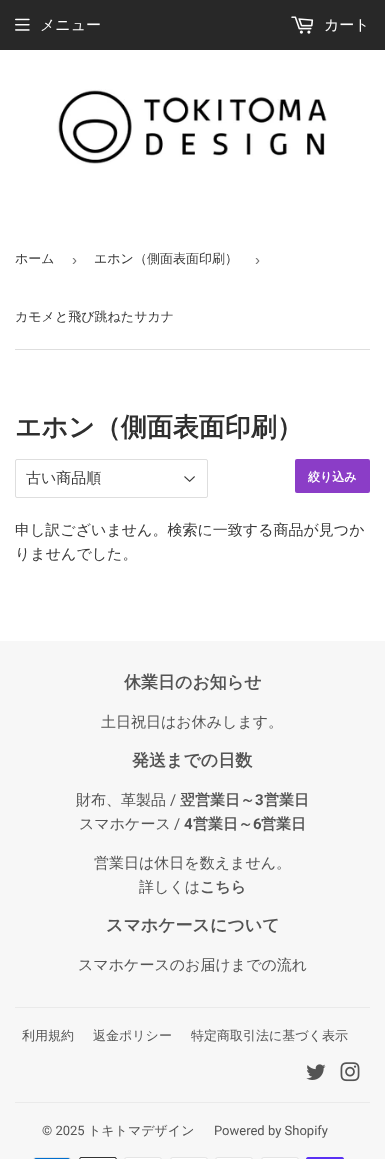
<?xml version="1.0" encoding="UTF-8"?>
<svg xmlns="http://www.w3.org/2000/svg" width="385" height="1159">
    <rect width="100%" height="100%" fill="#FFFFFF"/>
    <rect x="0" y="0" width="385" height="50" fill="#282828"/>
    <image x="15" y="18" width="15" height="13" href="img_01.png"/>
    <text x="40" y="30" font-family="WenQuanYi Zen Hei" font-size="15" font-weight="500" fill="#FFFFFF">メニュー</text>
    <image x="291" y="16" width="23" height="18" href="img_02.png"/>
    <text x="324" y="30" font-family="WenQuanYi Zen Hei" font-size="15" font-weight="500" fill="#FFFFFF">カート</text>
    <image x="57" y="89" width="270" height="75" href="img_03.png"/>
    <rect x="15" y="349" width="355" height="1" fill="#DEDEDE"/>
    <text x="15" y="263" font-family="WenQuanYi Zen Hei" font-size="13" font-weight="500" fill="#383838">ホーム</text>
    <text x="72" y="265" font-family="Liberation Sans" font-size="15" fill="#767676">›</text>
    <text x="94" y="263" font-family="WenQuanYi Zen Hei" font-size="13" font-weight="500" fill="#383838">エホン（側面表面印刷）</text>
    <text x="255" y="265" font-family="Liberation Sans" font-size="15" fill="#767676">›</text>
    <text x="15" y="321" font-family="WenQuanYi Zen Hei" font-size="13" font-weight="500" fill="#383838">カモメと飛び跳ねたサカナ</text>
    <text x="15" y="436" font-family="WenQuanYi Zen Hei" font-size="26" font-weight="700" fill="#2F2F2F">エホン（側面表面印刷）</text>
    <image x="184" y="476" width="11" height="6" href="img_04.png"/>
    <rect x="15.5" y="459.5" width="192" height="38" rx="1.5" fill="none" stroke="#DEDEDE"/>
    <text x="26" y="483" font-family="WenQuanYi Zen Hei" font-size="15" font-weight="500" fill="#383838">古い商品順</text>
    <rect x="295" y="459" width="75" height="34" rx="2" fill="#8B3DC7"/>
    <text x="308" y="481" font-family="WenQuanYi Zen Hei" font-size="12" font-weight="700" fill="#FFFFFF">絞り込み</text>
    <text font-family="WenQuanYi Zen Hei" font-size="15" font-weight="500" fill="#383838">
        <tspan x="15" y="535">申し訳ございません。検索に一致する商品が見つか</tspan>
        <tspan x="15" y="559">りませんでした。</tspan>
    </text>
    <rect x="0" y="641" width="385" height="518" fill="#F7F7F7"/>
    <text x="124" y="688" font-family="WenQuanYi Zen Hei" font-size="17" font-weight="700" fill="#545454">休業日のお知らせ</text>
    <text x="101" y="727" font-family="WenQuanYi Zen Hei" font-size="15" font-weight="500" fill="#545454">土日祝日はお休みします。</text>
    <text x="132" y="766" font-family="WenQuanYi Zen Hei" font-size="17" font-weight="700" fill="#545454">発送までの日数</text>
    <text x="76" y="805" font-family="WenQuanYi Zen Hei" font-size="15" font-weight="500" fill="#545454">財布、革製品</text>
    <text x="170" y="805" font-family="Roboto" font-size="15" fill="#545454">/</text>
    <text x="180" y="805" font-family="WenQuanYi Zen Hei" font-size="15" font-weight="700" fill="#545454">翌営業日～</text>
    <text x="255" y="805" font-family="Roboto" font-size="15" font-weight="700" fill="#545454">3</text>
    <text x="264" y="805" font-family="WenQuanYi Zen Hei" font-size="15" font-weight="700" fill="#545454">営業日</text>
    <text x="79" y="829" font-family="WenQuanYi Zen Hei" font-size="15" font-weight="500" fill="#545454">スマホケース</text>
    <text x="174" y="829" font-family="Roboto" font-size="15" fill="#545454">/</text>
    <text x="184" y="829" font-family="Roboto" font-size="15" font-weight="700" fill="#545454">4</text>
    <text x="193" y="829" font-family="WenQuanYi Zen Hei" font-size="15" font-weight="700" fill="#545454">営業日～</text>
    <text x="253" y="829" font-family="Roboto" font-size="15" font-weight="700" fill="#545454">6</text>
    <text x="261" y="829" font-family="WenQuanYi Zen Hei" font-size="15" font-weight="700" fill="#545454">営業日</text>
    <text x="94" y="868" font-family="WenQuanYi Zen Hei" font-size="15" font-weight="500" fill="#545454">営業日は休日を数えません。</text>
    <text x="139" y="892" font-family="WenQuanYi Zen Hei" font-size="15" font-weight="500" fill="#545454">詳しくは</text>
    <text x="200" y="892" font-family="WenQuanYi Zen Hei" font-size="15" font-weight="700" fill="#545454">こちら</text>
    <text x="106" y="931" font-family="WenQuanYi Zen Hei" font-size="17" font-weight="700" fill="#545454">スマホケースについて</text>
    <text x="78" y="970" font-family="WenQuanYi Zen Hei" font-size="15" font-weight="500" fill="#545454">スマホケースのお届けまでの流れ</text>
    <rect x="15" y="1007" width="355" height="1" fill="#EAEAEA"/>
    <text x="22" y="1040" font-family="WenQuanYi Zen Hei" font-size="13" font-weight="500" fill="#545454">利用規約</text>
    <text x="93" y="1040" font-family="WenQuanYi Zen Hei" font-size="13" font-weight="500" fill="#545454">返金ポリシー</text>
    <text x="191" y="1040" font-family="WenQuanYi Zen Hei" font-size="13" font-weight="500" fill="#545454">特定商取引法に基づく表示</text>
    <image x="306" y="1064" width="20" height="16" href="img_05.png"/>
    <image x="340" y="1062" width="20" height="20" href="img_06.png"/>
    <rect x="15" y="1102" width="355" height="1" fill="#EAEAEA"/>
    <text x="42" y="1135" font-family="Roboto" font-size="13" fill="#545454">© 2025</text>
    <text x="88" y="1135" font-family="WenQuanYi Zen Hei" font-size="13" font-weight="500" fill="#545454">トキトマデザイン</text>
    <text x="214" y="1135" font-family="Roboto" font-size="13" fill="#545454">Powered by Shopify</text>
    <image x="33" y="1157" width="38" height="2" href="img_07.png"/>
    <image x="79" y="1157" width="38" height="2" href="img_08.png"/>
    <image x="124" y="1157" width="38" height="2" href="img_09.png"/>
    <image x="170" y="1157" width="38" height="2" href="img_09.png"/>
    <image x="215" y="1157" width="38" height="2" href="img_09.png"/>
    <image x="261" y="1157" width="38" height="2" href="img_09.png"/>
    <image x="306" y="1157" width="38" height="2" href="img_10.png"/>
</svg>
